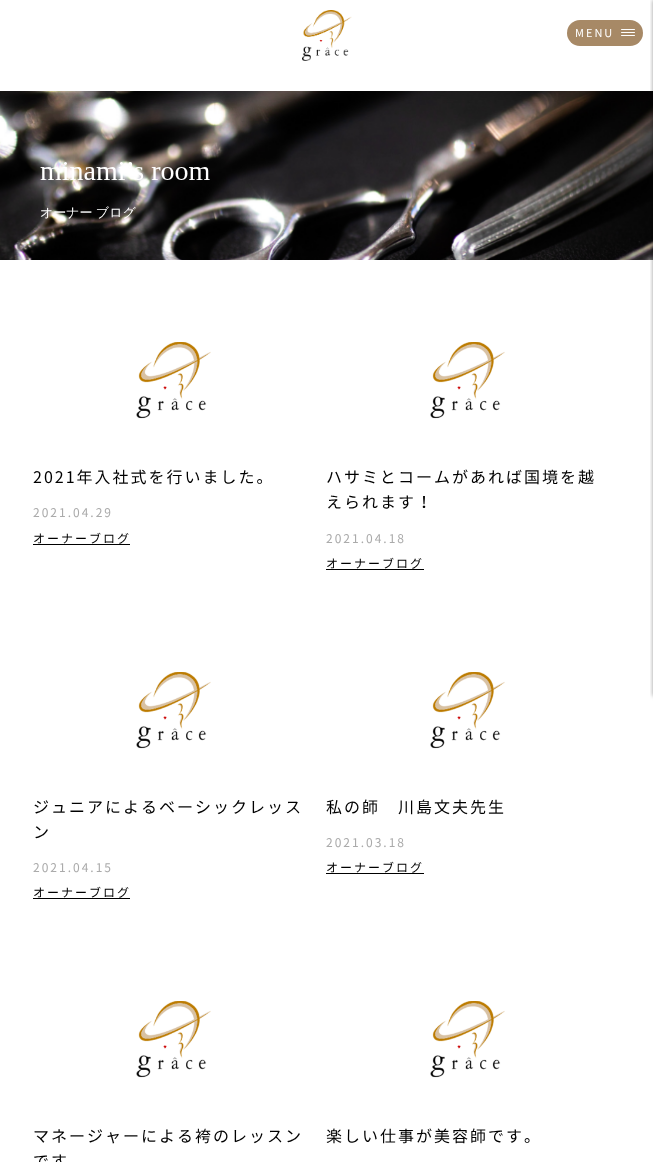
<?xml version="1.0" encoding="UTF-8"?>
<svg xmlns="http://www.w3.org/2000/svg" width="653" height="1162">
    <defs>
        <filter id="blur1" x="-50%" y="-200%" width="200%" height="500%"><feGaussianBlur stdDeviation="2"/></filter>
    </defs>
    <rect width="100%" height="100%" fill="#FFFFFF"/>
    <image x="302" y="10" width="50" height="51" href="img_01.png"/>
    <image x="0" y="91" width="653" height="169" href="img_02.png"/>
    <rect x="653" y="0" width="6" height="696" fill="#000000" fill-opacity="0.4" filter="url(#blur1)"/>
    <rect x="567" y="20" width="76" height="26" rx="13" fill="#A78966"/>
    <text x="575" y="37" font-family="Noto Sans CJK JP" font-size="11" letter-spacing="2" fill="#FFFFFF">MENU</text>
    <rect x="621" y="29" width="14" height="1" rx="0.5" fill="#FFFFFF"/>
    <rect x="621" y="32" width="14" height="1" rx="0.5" fill="#FFFFFF"/>
    <rect x="621" y="35" width="14" height="1" rx="0.5" fill="#FFFFFF"/>
    <image x="40" y="162" width="170" height="57" href="img_03.png"/>
    <image x="136" y="342" width="75" height="77" href="img_04.png"/>
    <text x="33" y="483" font-family="Noto Sans CJK JP" font-size="16" letter-spacing="2" fill="#000000">2021年入社式を行いました。</text>
    <text x="33" y="517" font-family="Noto Sans CJK JP" font-size="12" letter-spacing="2" fill="#AAAAAA">2021.04.29</text>
    <text x="33" y="543" font-family="Noto Sans CJK JP" font-size="12" letter-spacing="2" fill="#000000">オーナーブログ</text>
    <rect x="33" y="544" width="97" height="1" fill="#000000"/>
    <image x="430" y="342" width="75" height="77" href="img_04.png"/>
    <text font-family="Noto Sans CJK JP" font-size="16" letter-spacing="2" fill="#000000">
        <tspan x="326" y="483">ハサミとコームがあれば国境を越</tspan>
        <tspan x="326" y="508">えられます！</tspan>
    </text>
    <text x="326" y="543" font-family="Noto Sans CJK JP" font-size="12" letter-spacing="2" fill="#AAAAAA">2021.04.18</text>
    <text x="326" y="568" font-family="Noto Sans CJK JP" font-size="12" letter-spacing="2" fill="#000000">オーナーブログ</text>
    <rect x="326" y="569" width="98" height="1" fill="#000000"/>
    <image x="136" y="672" width="75" height="77" href="img_05.png"/>
    <text font-family="Noto Sans CJK JP" font-size="16" letter-spacing="2" fill="#000000">
        <tspan x="33" y="813">ジュニアによるベーシックレッス</tspan>
        <tspan x="33" y="838">ン</tspan>
    </text>
    <text x="33" y="872" font-family="Noto Sans CJK JP" font-size="12" letter-spacing="2" fill="#AAAAAA">2021.04.15</text>
    <text x="33" y="897" font-family="Noto Sans CJK JP" font-size="12" letter-spacing="2" fill="#000000">オーナーブログ</text>
    <rect x="33" y="898" width="97" height="1" fill="#000000"/>
    <image x="430" y="672" width="75" height="77" href="img_05.png"/>
    <text x="326" y="813" font-family="Noto Sans CJK JP" font-size="16" letter-spacing="2" fill="#000000">私の師　川島文夫先生</text>
    <text x="326" y="847" font-family="Noto Sans CJK JP" font-size="12" letter-spacing="2" fill="#AAAAAA">2021.03.18</text>
    <text x="326" y="872" font-family="Noto Sans CJK JP" font-size="12" letter-spacing="2" fill="#000000">オーナーブログ</text>
    <rect x="326" y="873" width="98" height="1" fill="#000000"/>
    <image x="136" y="1001" width="75" height="77" href="img_05.png"/>
    <text font-family="Noto Sans CJK JP" font-size="16" letter-spacing="2" fill="#000000">
        <tspan x="33" y="1142">マネージャーによる袴のレッスン</tspan>
        <tspan x="33" y="1167">です</tspan>
    </text>
    <image x="430" y="1001" width="75" height="77" href="img_05.png"/>
    <text x="326" y="1142" font-family="Noto Sans CJK JP" font-size="16" letter-spacing="2" fill="#000000">楽しい仕事が美容師です。</text>
</svg>
